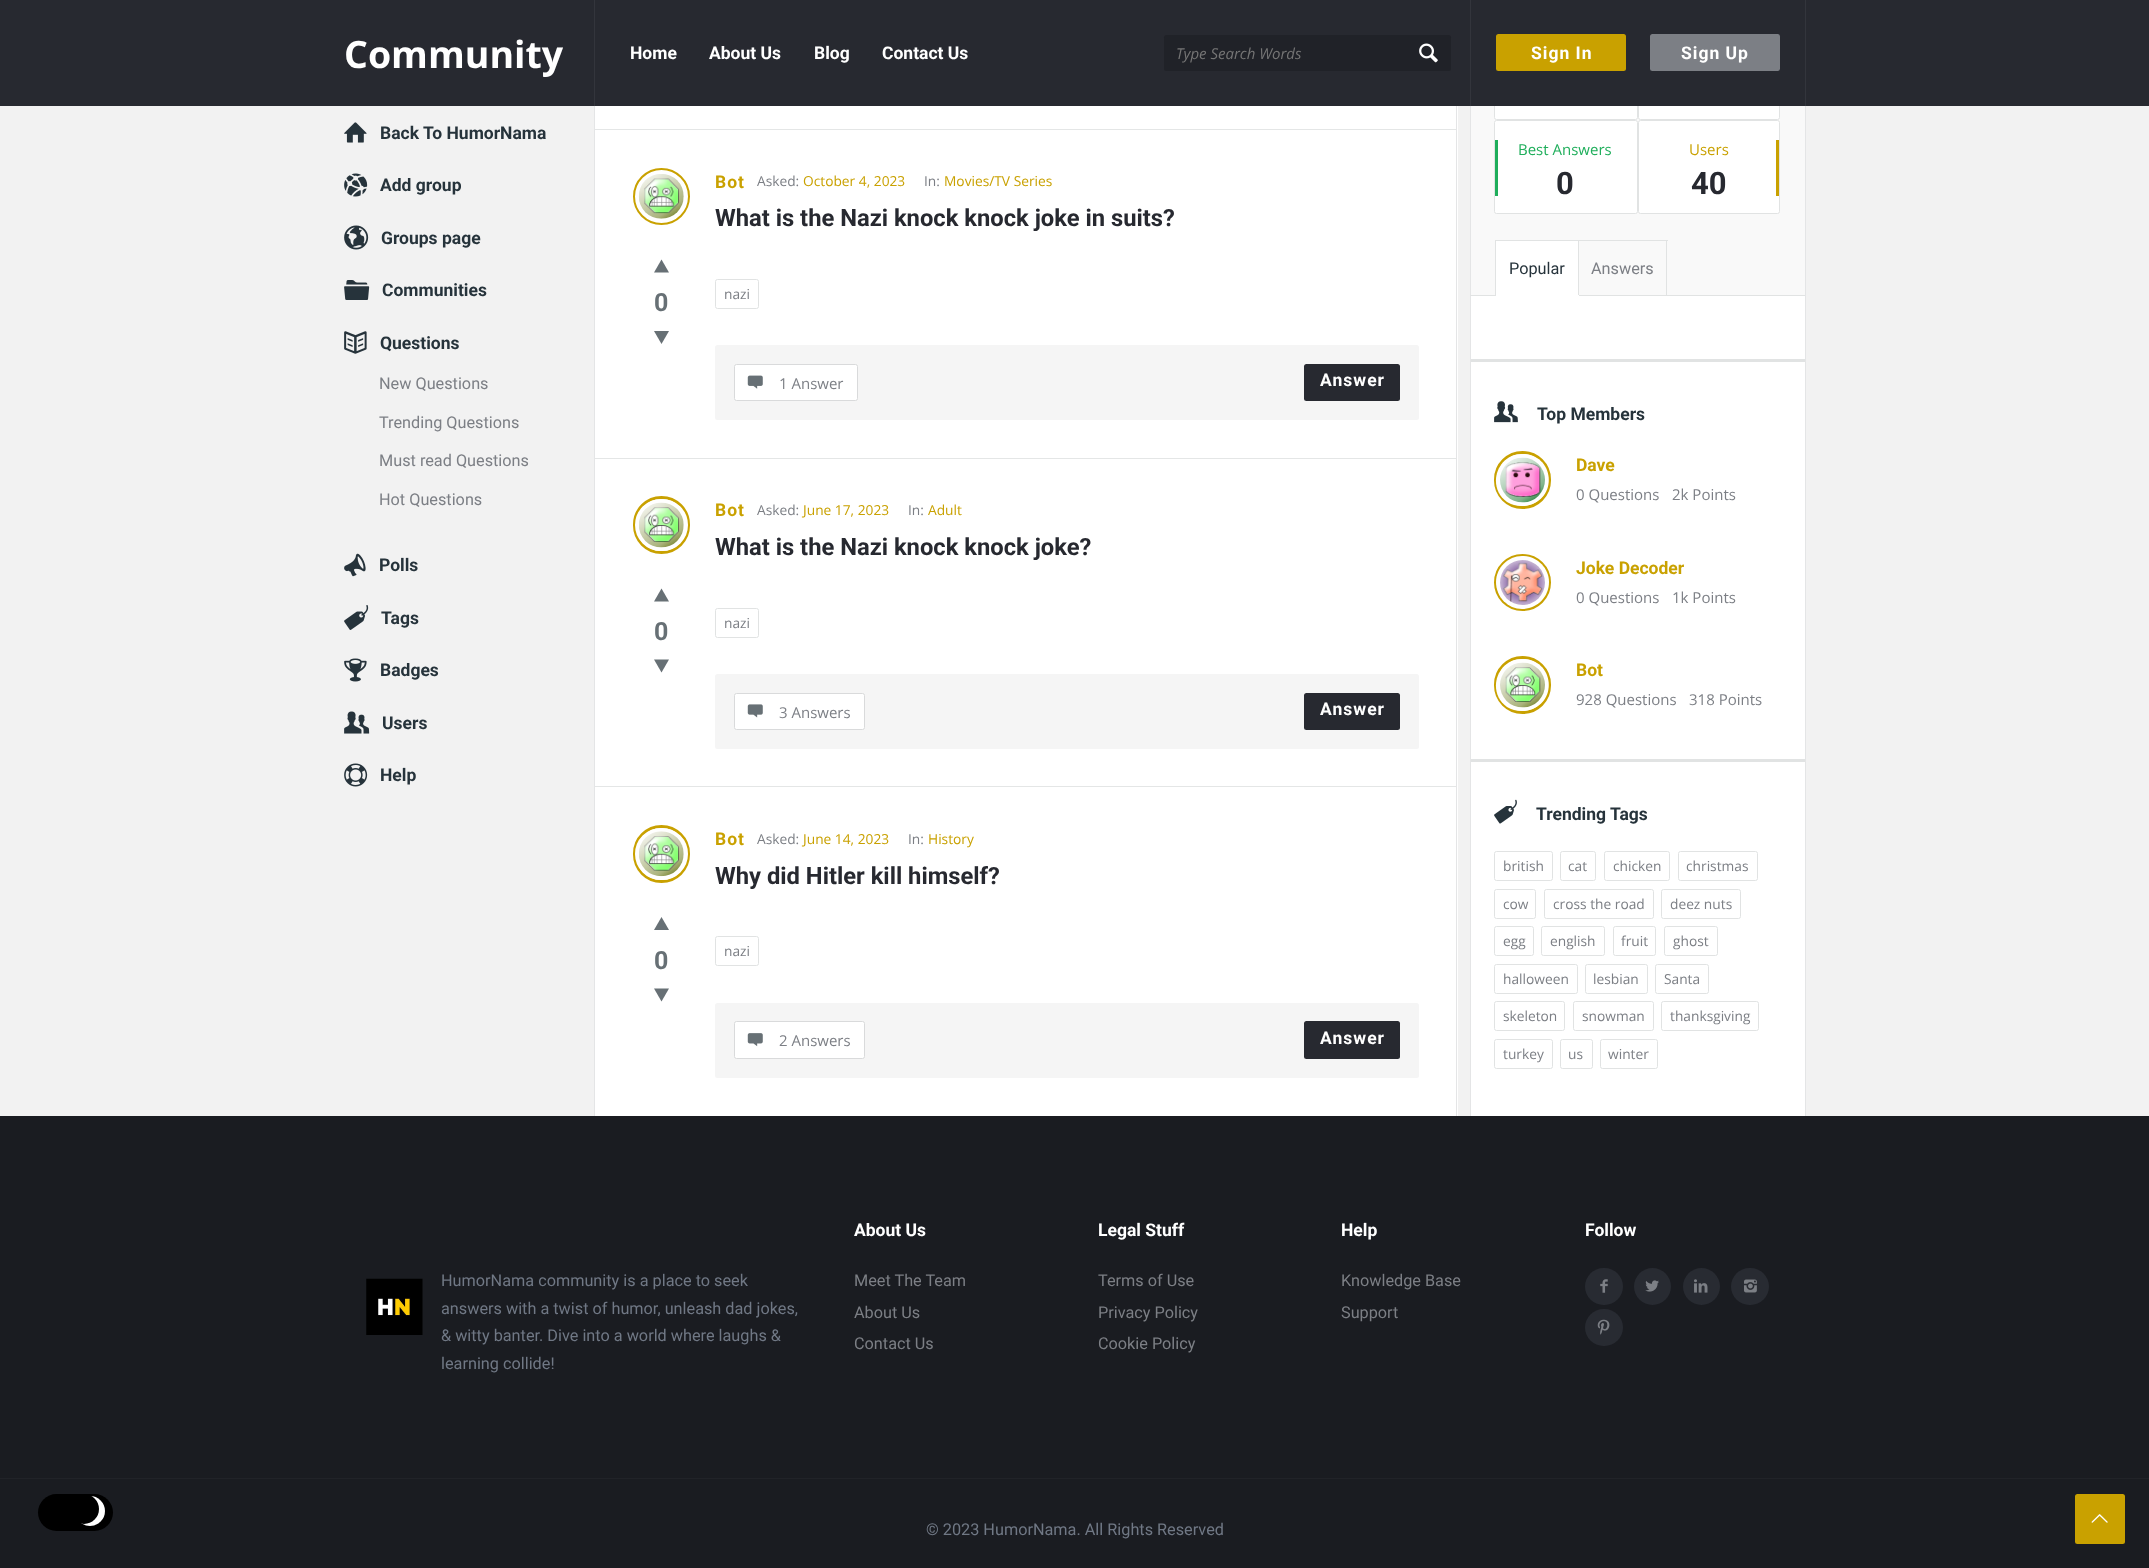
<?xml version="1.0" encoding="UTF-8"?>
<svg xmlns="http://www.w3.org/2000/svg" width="2149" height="1568">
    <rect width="100%" height="100%" fill="#F2F2F2"/>
    <rect x="0" y="1116" width="2149" height="452" fill="#1A1C21"/>
    <rect x="38" y="1494" width="75" height="37" rx="18.5" fill="#000000"/>
    <circle cx="90" cy="1511" r="15" fill="#FFFFFF"/>
    <circle cx="84" cy="1509" r="15" fill="#000000"/>
    <rect x="1471" y="106" width="334" height="189" fill="#F9F9F9"/>
    <rect x="1494.5" y="26.5" width="143" height="93" rx="2" fill="#FFFFFF" stroke="#E1E3E3"/>
    <rect x="1638.5" y="26.5" width="141" height="93" rx="2" fill="#FFFFFF" stroke="#E1E3E3"/>
    <rect x="0" y="0" width="2149" height="106" fill="#272930"/>
    <rect x="594" y="0" width="1" height="106" fill="#33353C"/>
    <text x="344" y="68" font-family="Open Sans" font-size="37.5" font-weight="700" fill="#FFFFFF">Community</text>
    <text x="630" y="59" font-family="Roboto" font-size="17.5" font-weight="700" fill="#FFFFFF">Home</text>
    <text x="709" y="59" font-family="Roboto" font-size="17.5" font-weight="700" fill="#FFFFFF">About Us</text>
    <text x="814" y="59" font-family="Roboto" font-size="17.5" font-weight="700" fill="#FFFFFF">Blog</text>
    <text x="882" y="59" font-family="Roboto" font-size="17.5" font-weight="700" fill="#FFFFFF">Contact Us</text>
    <rect x="1164" y="35" width="287" height="36" rx="2.5" fill="#202228"/>
    <text x="1176" y="59" font-family="Open Sans" font-size="15" font-style="italic" fill="#757575">Type Search Words</text>
    <image x="1419" y="43" width="19" height="20" href="img_01.png"/>
    <rect x="1805" y="0" width="1" height="106" fill="#33353C"/>
    <rect x="1470" y="0" width="1" height="106" fill="#33353C"/>
    <rect x="1496" y="34" width="130" height="37" rx="2.5" fill="#C9A100"/>
    <text x="1531" y="59" font-family="Roboto" font-size="17.5" font-weight="700" letter-spacing="1" fill="#FFFFFF">Sign In</text>
    <rect x="1650" y="34" width="130" height="37" rx="2.5" fill="#7C7F85"/>
    <text x="1681" y="59" font-family="Roboto" font-size="17.5" font-weight="700" letter-spacing="1" fill="#FFFFFF">Sign Up</text>
    <image x="344" y="122" width="23" height="21" href="img_02.png"/>
    <text x="380" y="139" font-family="Roboto" font-size="17.5" font-weight="700" fill="#26333B">Back To HumorNama</text>
    <image x="344" y="173" width="24" height="24" href="img_03.png"/>
    <text x="380" y="191" font-family="Roboto" font-size="17.5" font-weight="700" fill="#26333B">Add group</text>
    <image x="344" y="225" width="25" height="25" href="img_04.png"/>
    <text x="381" y="244" font-family="Roboto" font-size="17.5" font-weight="700" fill="#26333B">Groups page</text>
    <image x="344" y="280" width="26" height="20" href="img_05.png"/>
    <text x="382" y="296" font-family="Roboto" font-size="17.5" font-weight="700" fill="#26333B">Communities</text>
    <image x="344" y="331" width="23" height="23" href="img_06.png"/>
    <text x="380" y="349" font-family="Roboto" font-size="17.5" font-weight="700" fill="#26333B">Questions</text>
    <text x="379" y="389" font-family="Roboto" font-size="16.25" fill="#7C7F85">New Questions</text>
    <text x="379" y="428" font-family="Roboto" font-size="16.25" fill="#7C7F85">Trending Questions</text>
    <text x="379" y="466" font-family="Roboto" font-size="16.25" fill="#7C7F85">Must read Questions</text>
    <text x="379" y="505" font-family="Roboto" font-size="16.25" fill="#7C7F85">Hot Questions</text>
    <image x="344" y="553" width="22" height="24" href="img_07.png"/>
    <text x="379" y="571" font-family="Roboto" font-size="17.5" font-weight="700" fill="#26333B">Polls</text>
    <image x="344" y="605" width="25" height="25" href="img_08.png"/>
    <text x="381" y="624" font-family="Roboto" font-size="17.5" font-weight="700" fill="#26333B">Tags</text>
    <image x="344" y="658" width="23" height="24" href="img_09.png"/>
    <text x="380" y="676" font-family="Roboto" font-size="17.5" font-weight="700" fill="#26333B">Badges</text>
    <image x="344" y="711" width="26" height="23" href="img_10.png"/>
    <text x="382" y="729" font-family="Roboto" font-size="17.5" font-weight="700" fill="#26333B">Users</text>
    <image x="344" y="763" width="24" height="24" href="img_11.png"/>
    <text x="380" y="781" font-family="Roboto" font-size="17.5" font-weight="700" fill="#26333B">Help</text>
    <rect x="595" y="106" width="863" height="1010" fill="#FFFFFF"/>
    <rect x="1456" y="106" width="1" height="1010" fill="#E4E5E6"/>
    <rect x="594" y="106" width="1" height="1010" fill="#E4E5E6"/>
    <rect x="1471" y="362" width="334" height="754" fill="#FFFFFF"/>
    <rect x="1805" y="106" width="1" height="1010" fill="#E4E5E6"/>
    <rect x="1470" y="106" width="1" height="1010" fill="#E4E5E6"/>
    <rect x="595" y="129" width="861" height="1" fill="#E4E6E6"/>
    <rect x="595" y="458" width="861" height="1" fill="#E4E6E6"/>
    <circle cx="661.5" cy="196.5" r="27" fill="none" stroke="#C9A100" stroke-width="3"/>
    <circle cx="661.5" cy="196.5" r="24.5" fill="none" stroke="#FFFFFF" stroke-width="4"/>
    <image x="638" y="174" width="46" height="45" href="img_12.png"/>
    <text x="715" y="188" font-family="Roboto" font-size="17.5" font-weight="700" letter-spacing="1" fill="#C9A100">Bot</text>
    <text x="757" y="186" font-family="Open Sans" font-size="13.75" fill="#7C7F85">Asked:</text>
    <text x="803" y="186" font-family="Open Sans" font-size="13.75" fill="#C9A100">October 4, 2023</text>
    <text x="924" y="186" font-family="Open Sans" font-size="13.75" fill="#7C7F85">In:</text>
    <text x="944" y="186" font-family="Open Sans" font-size="13.75" fill="#C9A100">Movies/TV Series</text>
    <text x="715" y="226" font-family="Roboto" font-size="23.75" font-weight="700" fill="#272930">What is the Nazi knock knock joke in suits?</text>
    <path d="M 654 272.5 L 661.5 259.5 L 669 272.5 Z" fill="#677075"/>
    <text x="654" y="311" font-family="Roboto" font-size="25" font-weight="700" fill="#677075">0</text>
    <path d="M 669 331 L 661.5 344 L 654 331 Z" fill="#677075"/>
    <rect x="715.5" y="279.5" width="43" height="29" rx="2" fill="none" stroke="#E1E3E3"/>
    <text x="724" y="299" font-family="Open Sans" font-size="13.75" fill="#7C7F85">nazi</text>
    <rect x="715" y="345" width="704" height="75" rx="2.5" fill="#F5F5F5"/>
    <rect x="734.5" y="364.5" width="123" height="36" rx="2" fill="#FFFFFF" stroke="#D9DADB"/>
    <image x="747" y="375" width="16" height="14" href="img_13.png"/>
    <text x="779" y="389" font-family="Open Sans" font-size="15" fill="#7C7F85">1 Answer</text>
    <rect x="1304" y="364" width="96" height="37" rx="2.5" fill="#272930"/>
    <text x="1320" y="386" font-family="Roboto" font-size="17.5" font-weight="700" letter-spacing="1" fill="#FFFFFF">Answer</text>
    <rect x="595" y="786" width="861" height="1" fill="#E4E6E6"/>
    <rect x="634.5" y="497.5" width="54" height="55" rx="27" fill="none" stroke="#C9A100" stroke-width="3"/>
    <rect x="637" y="501" width="49" height="48" rx="24" fill="none" stroke="#FFFFFF" stroke-width="4"/>
    <image x="639" y="502" width="45" height="46" href="img_14.png"/>
    <text x="715" y="516" font-family="Roboto" font-size="17.5" font-weight="700" letter-spacing="1" fill="#C9A100">Bot</text>
    <text x="757" y="515" font-family="Open Sans" font-size="13.75" fill="#7C7F85">Asked:</text>
    <text x="803" y="515" font-family="Open Sans" font-size="13.75" fill="#C9A100">June 17, 2023</text>
    <text x="908" y="515" font-family="Open Sans" font-size="13.75" fill="#7C7F85">In:</text>
    <text x="928" y="515" font-family="Open Sans" font-size="13.75" fill="#C9A100">Adult</text>
    <text x="715" y="555" font-family="Roboto" font-size="23.75" font-weight="700" fill="#272930">What is the Nazi knock knock joke?</text>
    <path d="M 654 601.5 L 661.5 588.5 L 669 601.5 Z" fill="#677075"/>
    <text x="654" y="640" font-family="Roboto" font-size="25" font-weight="700" fill="#677075">0</text>
    <path d="M 669 659.5 L 661.5 672.5 L 654 659.5 Z" fill="#677075"/>
    <rect x="715.5" y="608.5" width="43" height="29" rx="2" fill="none" stroke="#E1E3E3"/>
    <text x="724" y="628" font-family="Open Sans" font-size="13.75" fill="#7C7F85">nazi</text>
    <rect x="715" y="674" width="704" height="75" rx="2.5" fill="#F5F5F5"/>
    <rect x="734.5" y="693.5" width="130" height="36" rx="2" fill="#FFFFFF" stroke="#D9DADB"/>
    <image x="747" y="704" width="16" height="14" href="img_15.png"/>
    <text x="779" y="718" font-family="Open Sans" font-size="15" fill="#7C7F85">3 Answers</text>
    <rect x="1304" y="693" width="96" height="37" rx="2.5" fill="#272930"/>
    <text x="1320" y="715" font-family="Roboto" font-size="17.5" font-weight="700" letter-spacing="1" fill="#FFFFFF">Answer</text>
    <rect x="634.5" y="826.5" width="54" height="55" rx="27" fill="none" stroke="#C9A100" stroke-width="3"/>
    <rect x="637" y="830" width="49" height="48" rx="24" fill="none" stroke="#FFFFFF" stroke-width="4"/>
    <image x="639" y="831" width="45" height="46" href="img_16.png"/>
    <text x="715" y="845" font-family="Roboto" font-size="17.5" font-weight="700" letter-spacing="1" fill="#C9A100">Bot</text>
    <text x="757" y="844" font-family="Open Sans" font-size="13.75" fill="#7C7F85">Asked:</text>
    <text x="803" y="844" font-family="Open Sans" font-size="13.75" fill="#C9A100">June 14, 2023</text>
    <text x="908" y="844" font-family="Open Sans" font-size="13.75" fill="#7C7F85">In:</text>
    <text x="928" y="844" font-family="Open Sans" font-size="13.75" fill="#C9A100">History</text>
    <text x="715" y="884" font-family="Roboto" font-size="23.75" font-weight="700" fill="#272930">Why did Hitler kill himself?</text>
    <path d="M 654 930 L 661.5 917 L 669 930 Z" fill="#677075"/>
    <text x="654" y="969" font-family="Roboto" font-size="25" font-weight="700" fill="#677075">0</text>
    <path d="M 669 988.5 L 661.5 1001.5 L 654 988.5 Z" fill="#677075"/>
    <rect x="715.5" y="936.5" width="43" height="29" rx="2" fill="none" stroke="#E1E3E3"/>
    <text x="724" y="956" font-family="Open Sans" font-size="13.75" fill="#7C7F85">nazi</text>
    <rect x="715" y="1003" width="704" height="75" rx="2.5" fill="#F5F5F5"/>
    <rect x="734.5" y="1021.5" width="130" height="37" rx="2" fill="#FFFFFF" stroke="#D9DADB"/>
    <image x="747" y="1033" width="16" height="14" href="img_17.png"/>
    <text x="779" y="1046" font-family="Open Sans" font-size="15" fill="#7C7F85">2 Answers</text>
    <rect x="1304" y="1021" width="96" height="38" rx="2.5" fill="#272930"/>
    <text x="1320" y="1044" font-family="Roboto" font-size="17.5" font-weight="700" letter-spacing="1" fill="#FFFFFF">Answer</text>
    <rect x="1494.5" y="120.5" width="143" height="93" rx="2" fill="#FFFFFF" stroke="#E1E3E3"/>
    <rect x="1495" y="140" width="3" height="56" fill="#1FAE5B"/>
    <text x="1518" y="155" font-family="Open Sans" font-size="15" fill="#1FAE5B">Best Answers</text>
    <text x="1556" y="194" font-family="Roboto" font-size="31" font-weight="700" fill="#272930">0</text>
    <rect x="1638.5" y="120.5" width="141" height="93" rx="2" fill="#FFFFFF" stroke="#E1E3E3"/>
    <text x="1689" y="155" font-family="Open Sans" font-size="15" fill="#C9A100">Users</text>
    <text x="1691" y="194" font-family="Roboto" font-size="31" font-weight="700" fill="#272930">40</text>
    <rect x="1776" y="140" width="3" height="56" fill="#C9A100"/>
    <rect x="1471" y="359" width="334" height="3" fill="#E1E3E3"/>
    <rect x="1470" y="295" width="335" height="1" fill="#E1E3E3"/>
    <rect x="1495.5" y="240.5" width="83" height="55" fill="#FFFFFF" stroke="#E1E3E3"/>
    <text x="1509" y="274" font-family="Roboto" font-size="16.25" fill="#26333B">Popular</text>
    <rect x="1496" y="295" width="83" height="1" fill="#FFFFFF"/>
    <rect x="1579" y="240" width="89" height="1" fill="#E1E3E3"/>
    <rect x="1666" y="240" width="1" height="56" fill="#E1E3E3"/>
    <text x="1591" y="274" font-family="Roboto" font-size="16.25" fill="#7C7F85">Answers</text>
    <rect x="1471" y="296" width="334" height="63" fill="#FFFFFF"/>
    <rect x="1471" y="759" width="334" height="3" fill="#E1E3E3"/>
    <image x="1494" y="401" width="24" height="22" href="img_18.png"/>
    <text x="1537" y="420" font-family="Roboto" font-size="17.5" font-weight="700" fill="#26333B">Top Members</text>
    <rect x="1495.5" y="452.5" width="54" height="55" rx="27" fill="none" stroke="#C9A100" stroke-width="3"/>
    <path d="M 1522 454 C 1556 454 1559 503 1523 506 C 1518 506 1512 505 1507 502 C 1486 487 1497 454 1522 454 Z" fill="#FFFFFF"/>
    <image x="1500" y="457" width="45" height="46" href="img_19.png"/>
    <text x="1576" y="471" font-family="Roboto" font-size="17.5" font-weight="700" fill="#C9A100">Dave</text>
    <text x="1576" y="500" font-family="Open Sans" font-size="15" fill="#7C7F85">0 Questions</text>
    <text x="1672" y="500" font-family="Open Sans" font-size="15" fill="#7C7F85">2k Points</text>
    <circle cx="1522.5" cy="582.5" r="27" fill="none" stroke="#C9A100" stroke-width="3"/>
    <path d="M 1522 556 C 1537 556 1549 568 1549 582 C 1549 597 1537 609 1522 609 C 1508 609 1496 597 1496 582 C 1496 568 1508 556 1522 556 Z" fill="#FFFFFF"/>
    <image x="1500" y="560" width="45" height="45" href="img_20.png"/>
    <text x="1576" y="574" font-family="Roboto" font-size="17.5" font-weight="700" fill="#C9A100">Joke Decoder</text>
    <text x="1576" y="603" font-family="Open Sans" font-size="15" fill="#7C7F85">0 Questions</text>
    <text x="1672" y="603" font-family="Open Sans" font-size="15" fill="#7C7F85">1k Points</text>
    <rect x="1495.5" y="657.5" width="54" height="55" rx="27" fill="none" stroke="#C9A100" stroke-width="3"/>
    <path d="M 1522 659 C 1556 659 1559 708 1523 711 C 1518 711 1512 710 1507 707 C 1486 692 1497 659 1522 659 Z" fill="#FFFFFF"/>
    <image x="1500" y="662" width="45" height="46" href="img_21.png"/>
    <text x="1576" y="676" font-family="Roboto" font-size="17.5" font-weight="700" fill="#C9A100">Bot</text>
    <text x="1576" y="705" font-family="Open Sans" font-size="15" fill="#7C7F85">928 Questions</text>
    <text x="1689" y="705" font-family="Open Sans" font-size="15" fill="#7C7F85">318 Points</text>
    <image x="1494" y="799" width="23" height="25" href="img_22.png"/>
    <text x="1536" y="820" font-family="Roboto" font-size="17.5" font-weight="700" fill="#26333B">Trending Tags</text>
    <rect x="1494.5" y="851.5" width="58" height="29" rx="2" fill="none" stroke="#E1E3E3"/>
    <text x="1503" y="871" font-family="Open Sans" font-size="13.75" fill="#7C7F85">british</text>
    <rect x="1560.5" y="851.5" width="35" height="29" rx="2" fill="none" stroke="#E1E3E3"/>
    <text x="1568" y="871" font-family="Open Sans" font-size="13.75" fill="#7C7F85">cat</text>
    <rect x="1604.5" y="851.5" width="65" height="29" rx="2" fill="none" stroke="#E1E3E3"/>
    <text x="1613" y="871" font-family="Open Sans" font-size="13.75" fill="#7C7F85">chicken</text>
    <rect x="1678.5" y="851.5" width="79" height="29" rx="2" fill="none" stroke="#E1E3E3"/>
    <text x="1686" y="871" font-family="Open Sans" font-size="13.75" fill="#7C7F85">christmas</text>
    <rect x="1494.5" y="889.5" width="41" height="29" rx="2" fill="none" stroke="#E1E3E3"/>
    <text x="1503" y="909" font-family="Open Sans" font-size="13.75" fill="#7C7F85">cow</text>
    <rect x="1544.5" y="889.5" width="109" height="29" rx="2" fill="none" stroke="#E1E3E3"/>
    <text x="1553" y="909" font-family="Open Sans" font-size="13.75" fill="#7C7F85">cross the road</text>
    <rect x="1661.5" y="889.5" width="79" height="29" rx="2" fill="none" stroke="#E1E3E3"/>
    <text x="1670" y="909" font-family="Open Sans" font-size="13.75" fill="#7C7F85">deez nuts</text>
    <rect x="1494.5" y="926.5" width="39" height="29" rx="2" fill="none" stroke="#E1E3E3"/>
    <text x="1503" y="946" font-family="Open Sans" font-size="13.75" fill="#7C7F85">egg</text>
    <rect x="1541.5" y="926.5" width="63" height="29" rx="2" fill="none" stroke="#E1E3E3"/>
    <text x="1550" y="946" font-family="Open Sans" font-size="13.75" fill="#7C7F85">english</text>
    <rect x="1613.5" y="926.5" width="42" height="29" rx="2" fill="none" stroke="#E1E3E3"/>
    <text x="1621" y="946" font-family="Open Sans" font-size="13.75" fill="#7C7F85">fruit</text>
    <rect x="1664.5" y="926.5" width="53" height="29" rx="2" fill="none" stroke="#E1E3E3"/>
    <text x="1673" y="946" font-family="Open Sans" font-size="13.75" fill="#7C7F85">ghost</text>
    <rect x="1494.5" y="964.5" width="83" height="29" rx="2" fill="none" stroke="#E1E3E3"/>
    <text x="1503" y="984" font-family="Open Sans" font-size="13.75" fill="#7C7F85">halloween</text>
    <rect x="1585.5" y="964.5" width="62" height="29" rx="2" fill="none" stroke="#E1E3E3"/>
    <text x="1593" y="984" font-family="Open Sans" font-size="13.75" fill="#7C7F85">lesbian</text>
    <rect x="1655.5" y="964.5" width="53" height="29" rx="2" fill="none" stroke="#E1E3E3"/>
    <text x="1664" y="984" font-family="Open Sans" font-size="13.75" fill="#7C7F85">Santa</text>
    <rect x="1494.5" y="1001.5" width="70" height="29" rx="2" fill="none" stroke="#E1E3E3"/>
    <text x="1503" y="1021" font-family="Open Sans" font-size="13.75" fill="#7C7F85">skeleton</text>
    <rect x="1573.5" y="1001.5" width="80" height="29" rx="2" fill="none" stroke="#E1E3E3"/>
    <text x="1582" y="1021" font-family="Open Sans" font-size="13.75" fill="#7C7F85">snowman</text>
    <rect x="1661.5" y="1001.5" width="97" height="29" rx="2" fill="none" stroke="#E1E3E3"/>
    <text x="1670" y="1021" font-family="Open Sans" font-size="13.75" fill="#7C7F85">thanksgiving</text>
    <rect x="1494.5" y="1039.5" width="58" height="29" rx="2" fill="none" stroke="#E1E3E3"/>
    <text x="1503" y="1059" font-family="Open Sans" font-size="13.75" fill="#7C7F85">turkey</text>
    <rect x="1560.5" y="1039.5" width="32" height="29" rx="2" fill="none" stroke="#E1E3E3"/>
    <text x="1568" y="1059" font-family="Open Sans" font-size="13.75" fill="#7C7F85">us</text>
    <rect x="1600.5" y="1039.5" width="57" height="29" rx="2" fill="none" stroke="#E1E3E3"/>
    <text x="1608" y="1059" font-family="Open Sans" font-size="13.75" fill="#7C7F85">winter</text>
    <rect x="0" y="1478" width="2149" height="1" fill="#212328"/>
    <text x="854" y="1236" font-family="Roboto" font-size="17.5" font-weight="700" fill="#FFFFFF">About Us</text>
    <text font-family="Roboto" font-size="16.25" fill="#7C7F85">
        <tspan x="854" y="1286">Meet The Team</tspan>
        <tspan x="854" y="1318">About Us</tspan>
        <tspan x="854" y="1349">Contact Us</tspan>
    </text>
    <text x="1098" y="1236" font-family="Roboto" font-size="17.5" font-weight="700" fill="#FFFFFF">Legal Stuff</text>
    <text font-family="Roboto" font-size="16.25" fill="#7C7F85">
        <tspan x="1098" y="1286">Terms of Use</tspan>
        <tspan x="1098" y="1318">Privacy Policy</tspan>
        <tspan x="1098" y="1349">Cookie Policy</tspan>
    </text>
    <text x="1341" y="1236" font-family="Roboto" font-size="17.5" font-weight="700" fill="#FFFFFF">Help</text>
    <text font-family="Roboto" font-size="16.25" fill="#7C7F85">
        <tspan x="1341" y="1286">Knowledge Base</tspan>
        <tspan x="1341" y="1318">Support</tspan>
    </text>
    <text x="1585" y="1236" font-family="Roboto" font-size="17.5" font-weight="700" fill="#FFFFFF">Follow</text>
    <rect x="1585" y="1268" width="38" height="37" rx="18.5" fill="#282B32"/>
    <image x="1600" y="1279" width="8" height="14" href="img_23.png"/>
    <circle cx="1652.5" cy="1286.5" r="18.5" fill="#282B32"/>
    <image x="1645" y="1280" width="14" height="12" href="img_24.png"/>
    <circle cx="1701.5" cy="1286.5" r="18.5" fill="#282B32"/>
    <image x="1694" y="1279" width="14" height="14" href="img_25.png"/>
    <rect x="1731" y="1268" width="38" height="37" rx="18.5" fill="#282B32"/>
    <image x="1744" y="1279" width="13" height="14" href="img_26.png"/>
    <rect x="1585" y="1309" width="38" height="37" rx="18.5" fill="#282B32"/>
    <image x="1597" y="1319" width="13" height="16" href="img_27.png"/>
    <image x="366" y="1278" width="57" height="57" href="img_28.png"/>
    <text font-family="Roboto" font-size="16.25" fill="#707885">
        <tspan x="441" y="1286">HumorNama community is a place to seek</tspan>
        <tspan x="441" y="1314">answers with a twist of humor, unleash dad jokes,</tspan>
        <tspan x="441" y="1341">&amp; witty banter. Dive into a world where laughs &amp;</tspan>
        <tspan x="441" y="1369">learning collide!</tspan>
    </text>
    <text x="926" y="1535" font-family="Roboto" font-size="16.25" fill="#707885">© 2023 HumorNama. All Rights Reserved</text>
    <rect x="2075" y="1494" width="50" height="50" rx="2.5" fill="#C9A100"/>
    <image x="2091" y="1514" width="17" height="9" href="img_29.png"/>
</svg>
